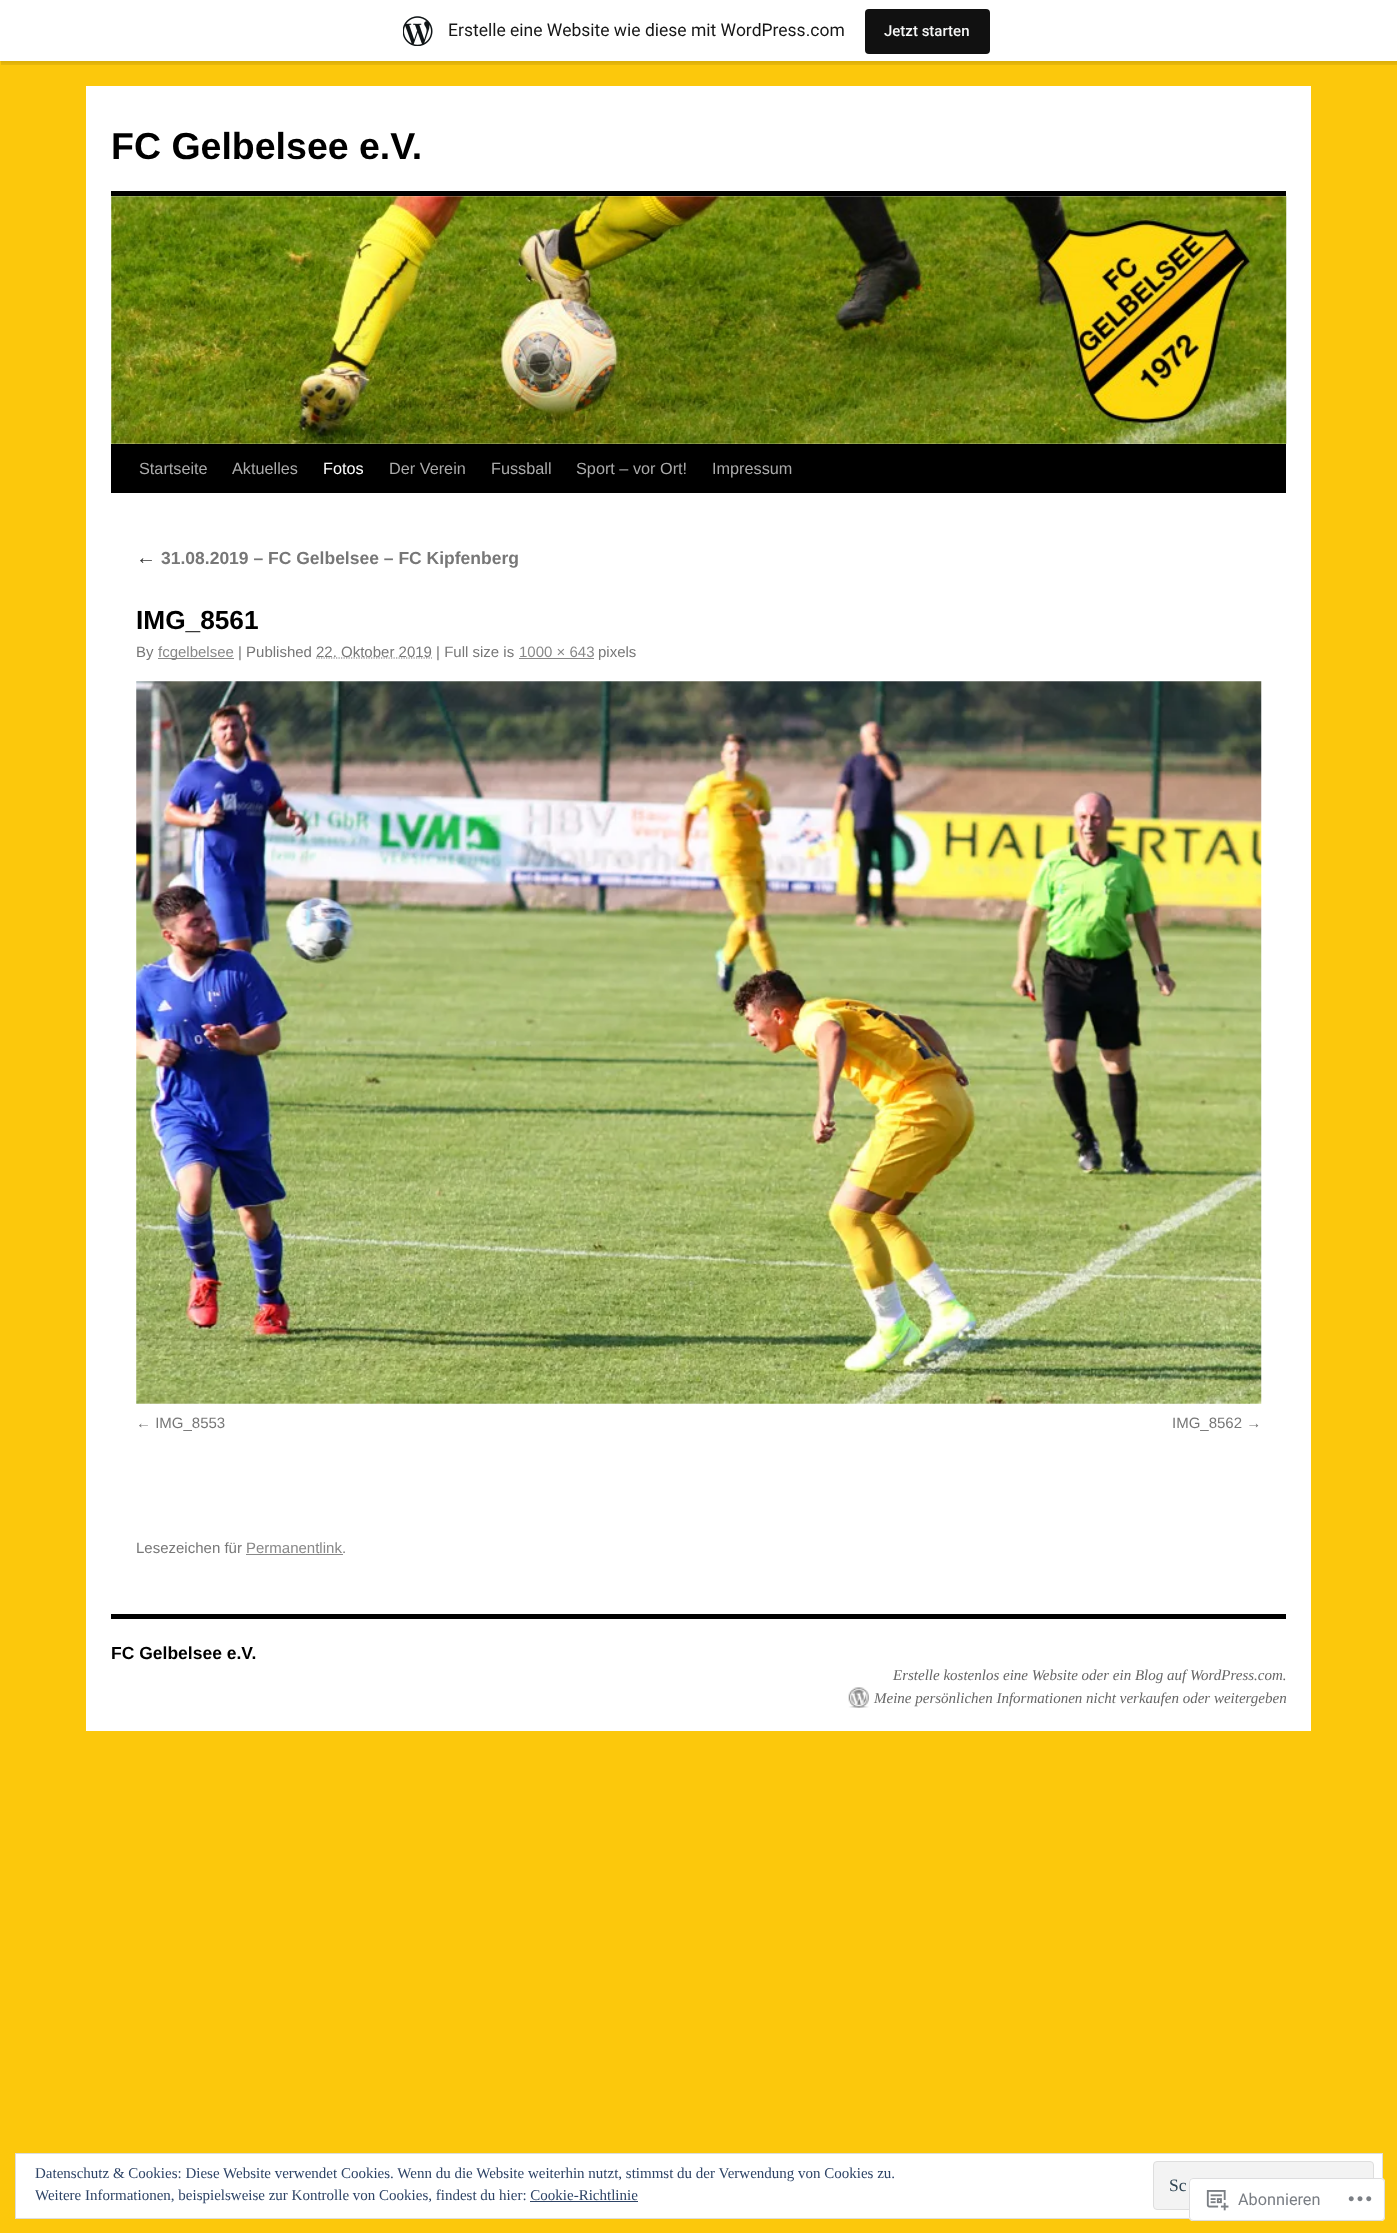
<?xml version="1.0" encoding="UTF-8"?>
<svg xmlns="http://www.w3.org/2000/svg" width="1397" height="2233">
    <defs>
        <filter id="blur1" x="-50%" y="-200%" width="200%" height="500%"><feGaussianBlur stdDeviation="1"/></filter>
    </defs>
    <rect width="100%" height="100%" fill="#FCC80C"/>
    <rect x="0" y="1" width="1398" height="62" fill="#000000" fill-opacity="0.05" filter="url(#blur1)"/>
    <path d="M 1 61 V 65 H 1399 V 4 H 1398 V 61 Z" fill="#000000" fill-opacity="0.08"/>
    <rect x="0" y="0" width="1397" height="61" fill="#FFFFFF"/>
    <image x="403" y="16" width="30" height="30" href="img_01.png"/>
    <text x="448" y="36" font-family="Roboto" font-size="17.5" fill="#171717">Erstelle eine Website wie diese mit WordPress.com</text>
    <rect x="865" y="9" width="125" height="45" rx="4" fill="#111111"/>
    <text x="884" y="36" font-family="Roboto" font-size="15" font-weight="500" fill="#F6F7F7">Jetzt starten</text>
    <rect x="86" y="86" width="1225" height="1645" fill="#FFFFFF"/>
    <text x="111" y="159" font-family="Liberation Sans" font-size="37.5" font-weight="700" fill="#000000">FC Gelbelsee e.V.</text>
    <rect x="111" y="191" width="1175" height="5" fill="#000000"/>
    <rect x="111" y="444" width="1175" height="49" fill="#000000"/>
    <image x="111" y="196" width="1176" height="248" href="img_02.png"/>
    <text x="139" y="474" font-family="Liberation Sans" font-size="16.25" fill="#AAAAAA">Startseite</text>
    <text x="232" y="474" font-family="Liberation Sans" font-size="16.25" fill="#AAAAAA">Aktuelles</text>
    <text x="323" y="474" font-family="Liberation Sans" font-size="16.25" fill="#FFFFFF">Fotos</text>
    <text x="389" y="474" font-family="Liberation Sans" font-size="16.25" fill="#AAAAAA">Der Verein</text>
    <text x="491" y="474" font-family="Liberation Sans" font-size="16.25" fill="#AAAAAA">Fussball</text>
    <text x="576" y="474" font-family="Liberation Sans" font-size="16.25" fill="#AAAAAA">Sport – vor Ort!</text>
    <text x="712" y="474" font-family="Liberation Sans" font-size="16.25" fill="#AAAAAA">Impressum</text>
    <text x="136" y="564" font-family="Liberation Serif" font-size="20" font-style="italic" fill="#333333">←</text>
    <text x="161" y="564" font-family="Liberation Sans" font-size="17.5" font-weight="700" fill="#777777">31.08.2019 – FC Gelbelsee – FC Kipfenberg</text>
    <text x="136" y="629" font-family="Liberation Sans" font-size="26.25" font-weight="700" fill="#000000">IMG_8561</text>
    <text x="136" y="657" font-family="Liberation Sans" font-size="15" fill="#777777">By</text>
    <rect x="158" y="658" width="76" height="1" fill="#888888"/>
    <text x="158" y="657" font-family="Liberation Sans" font-size="15" fill="#888888">fcgelbelsee</text>
    <text x="238" y="657" font-family="Liberation Sans" font-size="15" fill="#777777">| Published</text>
    <path d="M 316 658 H 432" fill="none" stroke="#777777" stroke-width="1.2" stroke-dasharray="1.25 1.25"/>
    <text x="316" y="657" font-family="Liberation Sans" font-size="15" fill="#777777">22. Oktober 2019 | Full size is</text>
    <text x="519" y="657" font-family="Liberation Sans" font-size="15" fill="#888888">1000 × 643</text>
    <rect x="519" y="658" width="75" height="1" fill="#888888"/>
    <text x="598" y="657" font-family="Liberation Sans" font-size="15" fill="#777777">pixels</text>
    <image x="136" y="681" width="1126" height="723" href="img_03.png"/>
    <text x="136" y="1428" font-family="Liberation Sans" font-size="15" fill="#777777">← IMG_8553</text>
    <text x="1172" y="1428" font-family="Liberation Sans" font-size="15" fill="#777777">IMG_8562 →</text>
    <text x="136" y="1553" font-family="Liberation Sans" font-size="15" fill="#777777">Lesezeichen für</text>
    <text x="246" y="1553" font-family="Liberation Sans" font-size="15" fill="#888888">Permanentlink</text>
    <rect x="246" y="1554" width="97" height="1" fill="#888888"/>
    <text x="342" y="1553" font-family="Liberation Sans" font-size="15" fill="#777777">.</text>
    <rect x="111" y="1614" width="1175" height="5" fill="#000000"/>
    <text x="111" y="1659" font-family="Liberation Sans" font-size="17.5" font-weight="700" fill="#000000">FC Gelbelsee e.V.</text>
    <text x="893" y="1680" font-family="Liberation Serif" font-size="15" font-style="italic" fill="#666666">Erstelle kostenlos eine Website oder ein Blog auf WordPress.com.</text>
    <image x="848" y="1687" width="21" height="21" href="img_04.png"/>
    <text x="874" y="1703" font-family="Liberation Serif" font-size="15" font-style="italic" fill="#666666">Meine persönlichen Informationen nicht verkaufen oder weitergeben</text>
    <rect x="15.5" y="2153.5" width="1367" height="65" fill="#FFFFFF" stroke="#DEDEDE"/>
    <text x="35" y="2178" font-family="Liberation Serif" font-size="15" fill="#2E4467">Datenschutz &amp; Cookies: Diese Website verwendet Cookies. Wenn du die Website weiterhin nutzt, stimmst du der Verwendung von Cookies zu.</text>
    <rect x="1153.5" y="2161.5" width="220" height="48" rx="3.5" fill="#F3F3F3" stroke="#DEDEDE"/>
    <text x="1169" y="2191" font-family="Liberation Serif" font-size="17.5" fill="#2E4453">Sc</text>
    <text x="35" y="2200" font-family="Liberation Serif" font-size="15" fill="#2E4467">Weitere Informationen, beispielsweise zur Kontrolle von Cookies, findest du hier: Cookie-Richtlinie</text>
    <rect x="530" y="2201" width="108" height="1" fill="#2E4467"/>
    <rect x="1189" y="2178" width="196" height="43" rx="4" fill="#FFFFFF" fill-opacity="0.98"/>
    <rect x="1189.5" y="2178.5" width="195" height="42" rx="3.5" fill="none" stroke="#DCDCDE" stroke-opacity="0.98"/>
    <image x="1206" y="2190" width="23" height="21" href="img_05.png"/>
    <text x="1238" y="2205" font-family="Roboto" font-size="16.25" fill="#7A7E84">Abonnieren</text>
    <image x="1348" y="2196" width="24" height="6" href="img_06.png"/>
</svg>
